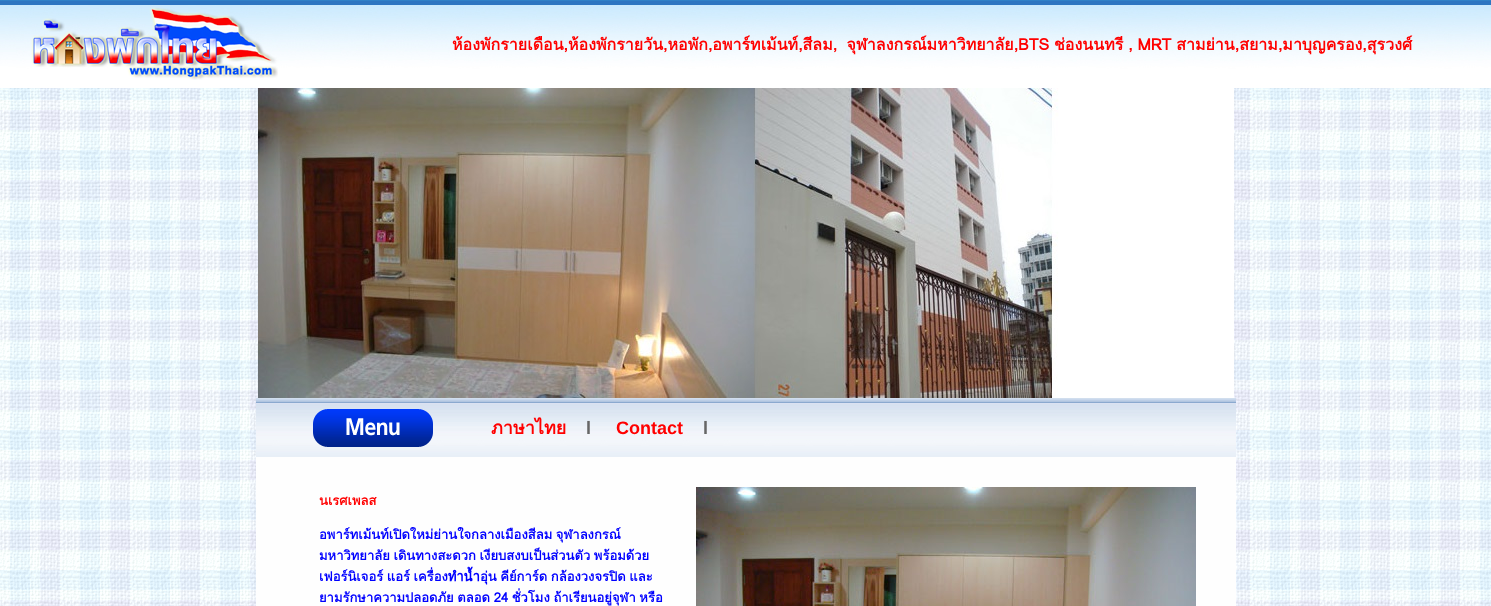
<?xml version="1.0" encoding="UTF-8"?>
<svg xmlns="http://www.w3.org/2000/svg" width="1491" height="606">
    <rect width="100%" height="100%" fill="#FFFFFF"/>
    <image x="0" y="88" width="1491" height="518" href="img_01.png"/>
    <image x="0" y="0" width="1491" height="88" href="img_02.png"/>
    <image x="31" y="7" width="247" height="73" href="img_03.png"/>
    <text x="452" y="50" word-spacing="4" font-family="Loma" font-size="16" font-weight="700" fill="#FF0000">ห้องพักรายเดือน,ห้องพักรายวัน,หอพัก,อพาร์ทเม้นท์,สีลม, จุฬาลงกรณ์มหาวิทยาลัย,</text>
    <text x="1018" y="50" word-spacing="-0.5" font-family="Loma" font-size="16" font-weight="700" fill="#FF0000">BTS ช่องนนทรี , MRT สามย่าน,สยาม,มาบุญครอง,สุรวงศ์</text>
    <image x="258" y="88" width="976" height="310" href="img_04.png"/>
    <image x="256" y="398" width="980" height="59" href="img_05.png"/>
    <image x="313" y="409" width="120" height="38" href="img_06.png"/>
    <text x="491" y="434" font-family="Loma" font-size="18" font-weight="700" fill="#FF0000">ภาษาไทย</text>
    <text x="586" y="434" font-family="Liberation Sans" font-size="18" font-weight="700" fill="#666666">l</text>
    <text x="616" y="434" font-family="Liberation Sans" font-size="18" font-weight="700" fill="#FF0000">Contact</text>
    <text x="703" y="434" font-family="Liberation Sans" font-size="18" font-weight="700" fill="#666666">l</text>
    <rect x="256" y="457" width="980" height="149" fill="#FEFEFE"/>
    <text x="319" y="505" font-family="Loma" font-size="13" font-weight="700" fill="#FF0000">นเรศเพลส</text>
    <text font-family="Loma" font-size="13" font-weight="700" fill="#0000FF">
        <tspan x="319" y="539" word-spacing="-0.75">อพาร์ทเม้นท์เปิดใหม่ย่านใจกลางเมืองสีลม จุฬาลงกรณ์</tspan>
        <tspan x="319" y="560" word-spacing="-0.75">มหาวิทยาลัย เดินทางสะดวก เงียบสงบเป็นส่วนตัว พร้อมด้วย</tspan>
        <tspan x="319" y="581" word-spacing="-0.75">เฟอร์นิเจอร์ แอร์ เครื่องทำน้ำอุ่น คีย์การ์ด กล้องวงจรปิด และ</tspan>
        <tspan x="319" y="602" word-spacing="-0.75">ยามรักษาความปลอดภัย ตลอด 24 ชั่วโมง ถ้าเรียนอยู่จุฬา หรือ</tspan>
    </text>
    <image x="696" y="487" width="500" height="119" href="img_07.png"/>
</svg>
